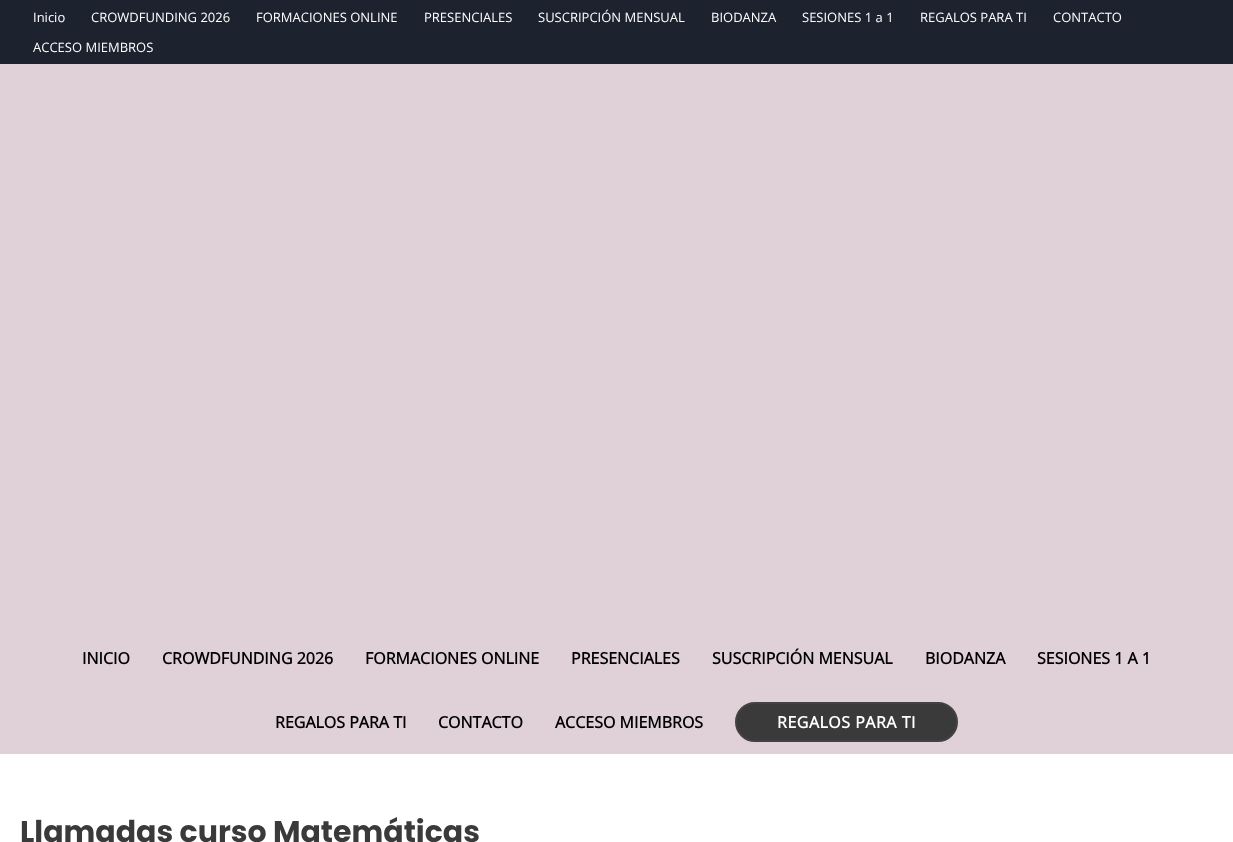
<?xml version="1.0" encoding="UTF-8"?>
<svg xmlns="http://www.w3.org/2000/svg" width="1233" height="842">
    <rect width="100%" height="100%" fill="#FFFFFF"/>
    <rect x="0" y="0" width="1233" height="64" fill="#1C232F"/>
    <text x="33" y="22" font-family="Open Sans" font-size="13" fill="#FFFFFF">Inicio</text>
    <text x="91" y="22" font-family="Open Sans" font-size="13" fill="#FFFFFF">CROWDFUNDING 2026</text>
    <text x="256" y="22" font-family="Open Sans" font-size="13" fill="#FFFFFF">FORMACIONES ONLINE</text>
    <text x="424" y="22" font-family="Open Sans" font-size="13" fill="#FFFFFF">PRESENCIALES</text>
    <text x="538" y="22" font-family="Open Sans" font-size="13" fill="#FFFFFF">SUSCRIPCIÓN MENSUAL</text>
    <text x="711" y="22" font-family="Open Sans" font-size="13" fill="#FFFFFF">BIODANZA</text>
    <text x="802" y="22" font-family="Open Sans" font-size="13" fill="#FFFFFF">SESIONES 1 a 1</text>
    <text x="920" y="22" font-family="Open Sans" font-size="13" fill="#FFFFFF">REGALOS PARA TI</text>
    <text x="1053" y="22" font-family="Open Sans" font-size="13" fill="#FFFFFF">CONTACTO</text>
    <text x="33" y="52" font-family="Open Sans" font-size="13" fill="#FFFFFF">ACCESO MIEMBROS</text>
    <rect x="0" y="64" width="1233" height="690" fill="#E0D0D8"/>
    <text x="82" y="664" font-family="Open Sans" font-size="16" font-weight="700" fill="#000000">INICIO</text>
    <text x="162" y="664" font-family="Open Sans" font-size="16" font-weight="700" fill="#000000">CROWDFUNDING 2026</text>
    <text x="365" y="664" font-family="Open Sans" font-size="16" font-weight="700" fill="#000000">FORMACIONES ONLINE</text>
    <text x="571" y="664" font-family="Open Sans" font-size="16" font-weight="700" fill="#000000">PRESENCIALES</text>
    <text x="712" y="664" font-family="Open Sans" font-size="16" font-weight="700" fill="#000000">SUSCRIPCIÓN MENSUAL</text>
    <text x="925" y="664" font-family="Open Sans" font-size="16" font-weight="700" fill="#000000">BIODANZA</text>
    <text x="1037" y="664" font-family="Open Sans" font-size="16" font-weight="700" fill="#000000">SESIONES 1 A 1</text>
    <text x="275" y="728" font-family="Open Sans" font-size="16" font-weight="700" fill="#000000">REGALOS PARA TI</text>
    <text x="438" y="728" font-family="Open Sans" font-size="16" font-weight="700" fill="#000000">CONTACTO</text>
    <text x="555" y="728" font-family="Open Sans" font-size="16" font-weight="700" fill="#000000">ACCESO MIEMBROS</text>
    <rect x="736" y="703" width="221" height="38" rx="19" fill="#3A3A3A" stroke="#424242" stroke-width="2"/>
    <text x="777" y="728" font-family="Open Sans" font-size="16" font-weight="700" letter-spacing="0.5" fill="#FFFFFF">REGALOS PARA TI</text>
    <text x="20" y="842" font-family="Poppins" font-size="30" font-weight="700" fill="#3A3A3A">Llamadas curso Matemáticas</text>
</svg>
